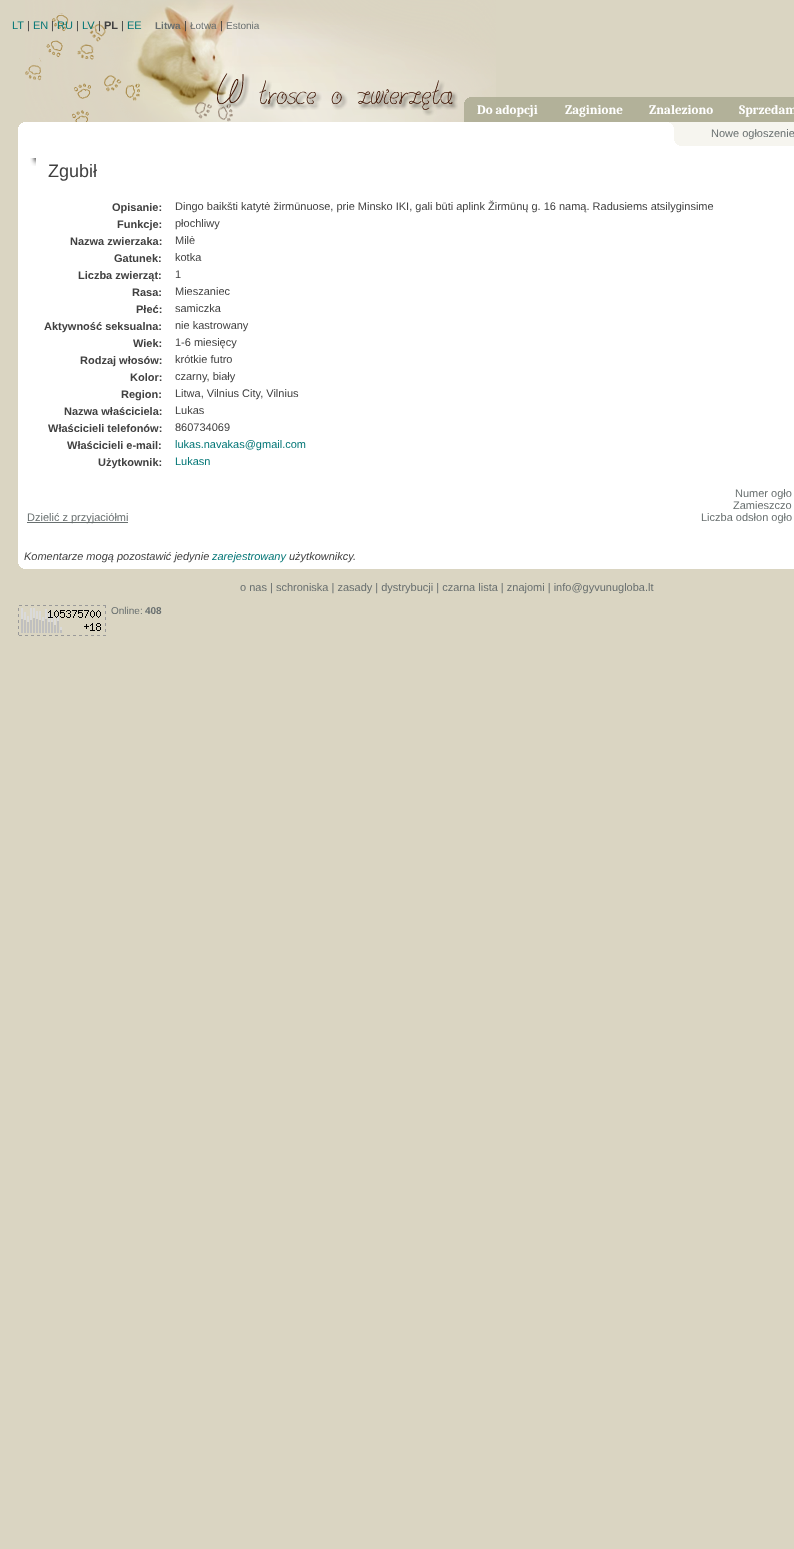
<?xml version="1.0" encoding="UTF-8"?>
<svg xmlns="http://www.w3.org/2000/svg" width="794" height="1549">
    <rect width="100%" height="100%" fill="#DAD5C2"/>
    <image x="25" y="0" width="471" height="122" href="img_01.png"/>
    <text x="12" y="29" font-family="Liberation Sans" font-size="11" fill="#007575">LT</text>
    <text x="27" y="29" font-family="Liberation Sans" font-size="11" fill="#404040">|</text>
    <text x="33" y="29" font-family="Liberation Sans" font-size="11" fill="#007575">EN</text>
    <text x="51" y="29" font-family="Liberation Sans" font-size="11" fill="#404040">|</text>
    <text x="57" y="29" font-family="Liberation Sans" font-size="11" fill="#007575">RU</text>
    <text x="76" y="29" font-family="Liberation Sans" font-size="11" fill="#404040">|</text>
    <text x="82" y="29" font-family="Liberation Sans" font-size="11" fill="#007575">LV</text>
    <text x="98" y="29" font-family="Liberation Sans" font-size="11" fill="#404040">|</text>
    <text x="104" y="29" font-family="Liberation Sans" font-size="11" font-weight="700" fill="#404040">PL</text>
    <text x="121" y="29" font-family="Liberation Sans" font-size="11" fill="#404040">|</text>
    <text x="127" y="29" font-family="Liberation Sans" font-size="11" fill="#007575">EE</text>
    <text x="155" y="29" font-family="Liberation Sans" font-size="10" font-weight="700" fill="#686F6F">Litwa</text>
    <text x="184" y="29" font-family="Liberation Sans" font-size="11" fill="#404040">|</text>
    <text x="190" y="29" font-family="Liberation Sans" font-size="10" fill="#686F6F">Łotwa</text>
    <text x="220" y="29" font-family="Liberation Sans" font-size="11" fill="#404040">|</text>
    <text x="226" y="29" font-family="Liberation Sans" font-size="10" fill="#686F6F">Estonia</text>
    <image x="195" y="73" width="263" height="49" href="img_02.png"/>
    <rect x="469" y="97" width="325" height="1" fill="#A6A68D" fill-opacity="0.76"/>
    <rect x="467" y="98" width="327" height="1" fill="#A6A68D" fill-opacity="0.76"/>
    <rect x="466" y="99" width="328" height="1" fill="#A6A68D" fill-opacity="0.76"/>
    <rect x="465" y="100" width="329" height="2" fill="#A6A68D" fill-opacity="0.76"/>
    <rect x="464" y="102" width="330" height="20" fill="#A6A68D" fill-opacity="0.76"/>
    <text x="477" y="114" font-family="Caladea" font-size="13" font-weight="700" fill="#FFFFFF">Do adopcji</text>
    <text x="565" y="114" font-family="Caladea" font-size="13" font-weight="700" fill="#FFFFFF">Zaginione</text>
    <text x="649" y="114" font-family="Caladea" font-size="13" font-weight="700" fill="#FFFFFF">Znaleziono</text>
    <text x="739" y="114" font-family="Caladea" font-size="13" font-weight="700" fill="#FFFFFF">Sprzedam</text>
    <rect x="23" y="122" width="646" height="1" fill="#FFFFFF"/>
    <rect x="669" y="122" width="5" height="5" fill="#F6F5EF"/>
    <rect x="21" y="123" width="650" height="1" fill="#FFFFFF"/>
    <rect x="20" y="124" width="652" height="1" fill="#FFFFFF"/>
    <rect x="19" y="125" width="654" height="2" fill="#FFFFFF"/>
    <rect x="18" y="127" width="656" height="19" fill="#FFFFFF"/>
    <rect x="674" y="141" width="5" height="5" fill="#FFFFFF"/>
    <rect x="674" y="122" width="37" height="19" fill="#F6F5EF"/>
    <rect x="675" y="141" width="36" height="2" fill="#F6F5EF"/>
    <rect x="676" y="143" width="35" height="1" fill="#F6F5EF"/>
    <rect x="677" y="144" width="34" height="1" fill="#F6F5EF"/>
    <rect x="679" y="145" width="32" height="1" fill="#F6F5EF"/>
    <rect x="711" y="122" width="83" height="24" fill="#F6F5EF"/>
    <text x="711" y="137" font-family="Liberation Sans" font-size="11" fill="#686F6F">Nowe ogłoszenie</text>
    <rect x="18" y="146" width="776" height="5" fill="#FFFFFF"/>
    <rect x="18" y="151" width="776" height="413" fill="#FFFFFF"/>
    <image x="29" y="158" width="7" height="8" href="img_03.png"/>
    <text x="48" y="177" font-family="Liberation Sans" font-size="18" fill="#404040">Zgubił</text>
    <text x="112" y="211" font-family="Liberation Sans" font-size="11" font-weight="700" fill="#404040">Opisanie:</text>
    <text x="175" y="210" font-family="Liberation Sans" font-size="11" fill="#404040">Dingo baikšti katytė žirmūnuose, prie Minsko IKI, gali būti aplink Žirmūnų g. 16 namą. Radusiems atsilyginsime</text>
    <text x="117" y="228" font-family="Liberation Sans" font-size="11" font-weight="700" fill="#404040">Funkcje:</text>
    <text x="175" y="227" font-family="Liberation Sans" font-size="11" fill="#404040">płochliwy</text>
    <text x="70" y="245" font-family="Liberation Sans" font-size="11" font-weight="700" fill="#404040">Nazwa zwierzaka:</text>
    <text x="175" y="244" font-family="Liberation Sans" font-size="11" fill="#404040">Milė</text>
    <text x="114" y="262" font-family="Liberation Sans" font-size="11" font-weight="700" fill="#404040">Gatunek:</text>
    <text x="175" y="261" font-family="Liberation Sans" font-size="11" fill="#404040">kotka</text>
    <text x="78" y="279" font-family="Liberation Sans" font-size="11" font-weight="700" fill="#404040">Liczba zwierząt:</text>
    <text x="175" y="278" font-family="Liberation Sans" font-size="11" fill="#404040">1</text>
    <text x="132" y="296" font-family="Liberation Sans" font-size="11" font-weight="700" fill="#404040">Rasa:</text>
    <text x="175" y="295" font-family="Liberation Sans" font-size="11" fill="#404040">Mieszaniec</text>
    <text x="136" y="313" font-family="Liberation Sans" font-size="11" font-weight="700" fill="#404040">Płeć:</text>
    <text x="175" y="312" font-family="Liberation Sans" font-size="11" fill="#404040">samiczka</text>
    <text x="44" y="330" font-family="Liberation Sans" font-size="11" font-weight="700" fill="#404040">Aktywność seksualna:</text>
    <text x="175" y="329" font-family="Liberation Sans" font-size="11" fill="#404040">nie kastrowany</text>
    <text x="133" y="347" font-family="Liberation Sans" font-size="11" font-weight="700" fill="#404040">Wiek:</text>
    <text x="175" y="346" font-family="Liberation Sans" font-size="11" fill="#404040">1-6 miesięcy</text>
    <text x="80" y="364" font-family="Liberation Sans" font-size="11" font-weight="700" fill="#404040">Rodzaj włosów:</text>
    <text x="175" y="363" font-family="Liberation Sans" font-size="11" fill="#404040">krótkie futro</text>
    <text x="130" y="381" font-family="Liberation Sans" font-size="11" font-weight="700" fill="#404040">Kolor:</text>
    <text x="175" y="380" font-family="Liberation Sans" font-size="11" fill="#404040">czarny, biały</text>
    <text x="121" y="398" font-family="Liberation Sans" font-size="11" font-weight="700" fill="#404040">Region:</text>
    <text x="175" y="397" font-family="Liberation Sans" font-size="11" fill="#404040">Litwa, Vilnius City, Vilnius</text>
    <text x="64" y="415" font-family="Liberation Sans" font-size="11" font-weight="700" fill="#404040">Nazwa właściciela:</text>
    <text x="175" y="414" font-family="Liberation Sans" font-size="11" fill="#404040">Lukas</text>
    <text x="48" y="432" font-family="Liberation Sans" font-size="11" font-weight="700" fill="#404040">Właścicieli telefonów:</text>
    <text x="175" y="431" font-family="Liberation Sans" font-size="11" fill="#404040">860734069</text>
    <text x="67" y="449" font-family="Liberation Sans" font-size="11" font-weight="700" fill="#404040">Właścicieli e-mail:</text>
    <text x="175" y="448" font-family="Liberation Sans" font-size="11" fill="#007575">lukas.navakas@gmail.com</text>
    <text x="98" y="466" font-family="Liberation Sans" font-size="11" font-weight="700" fill="#404040">Użytkownik:</text>
    <text x="175" y="465" font-family="Liberation Sans" font-size="11" fill="#007575">Lukasn</text>
    <rect x="27" y="522" width="101" height="1" fill="#686F6F"/>
    <text x="27" y="521" font-family="Liberation Sans" font-size="11" fill="#686F6F">Dzielić z przyjaciółmi</text>
    <text x="735" y="497" font-family="Liberation Sans" font-size="11" fill="#686F6F">Numer ogło</text>
    <text x="733" y="509" font-family="Liberation Sans" font-size="11" fill="#686F6F">Zamieszczo</text>
    <text x="701" y="521" font-family="Liberation Sans" font-size="11" fill="#686F6F">Liczba odsłon ogło</text>
    <text x="24" y="560" font-family="Liberation Sans" font-size="11" font-style="italic" fill="#404040">Komentarze mogą pozostawić jedynie</text>
    <text x="212" y="560" font-family="Liberation Sans" font-size="11" font-style="italic" fill="#007575">zarejestrowany</text>
    <text x="289" y="560" font-family="Liberation Sans" font-size="11" font-style="italic" fill="#404040">użytkownikcy.</text>
    <rect x="19" y="564" width="775" height="2" fill="#FFFFFF"/>
    <rect x="20" y="566" width="774" height="1" fill="#FFFFFF"/>
    <rect x="21" y="567" width="773" height="1" fill="#FFFFFF"/>
    <rect x="23" y="568" width="771" height="1" fill="#FFFFFF"/>
    <text x="240" y="591" font-family="Liberation Sans" font-size="11" fill="#686F6F">o nas | schroniska | zasady | dystrybucji | czarna lista | znajomi | info@gyvunugloba.lt</text>
    <image x="18" y="605" width="88" height="31" href="img_04.png"/>
    <text x="111" y="614" font-family="Liberation Sans" font-size="10" fill="#686F6F">Online:</text>
    <text x="145" y="614" font-family="Liberation Sans" font-size="10" font-weight="700" fill="#686F6F">408</text>
</svg>
